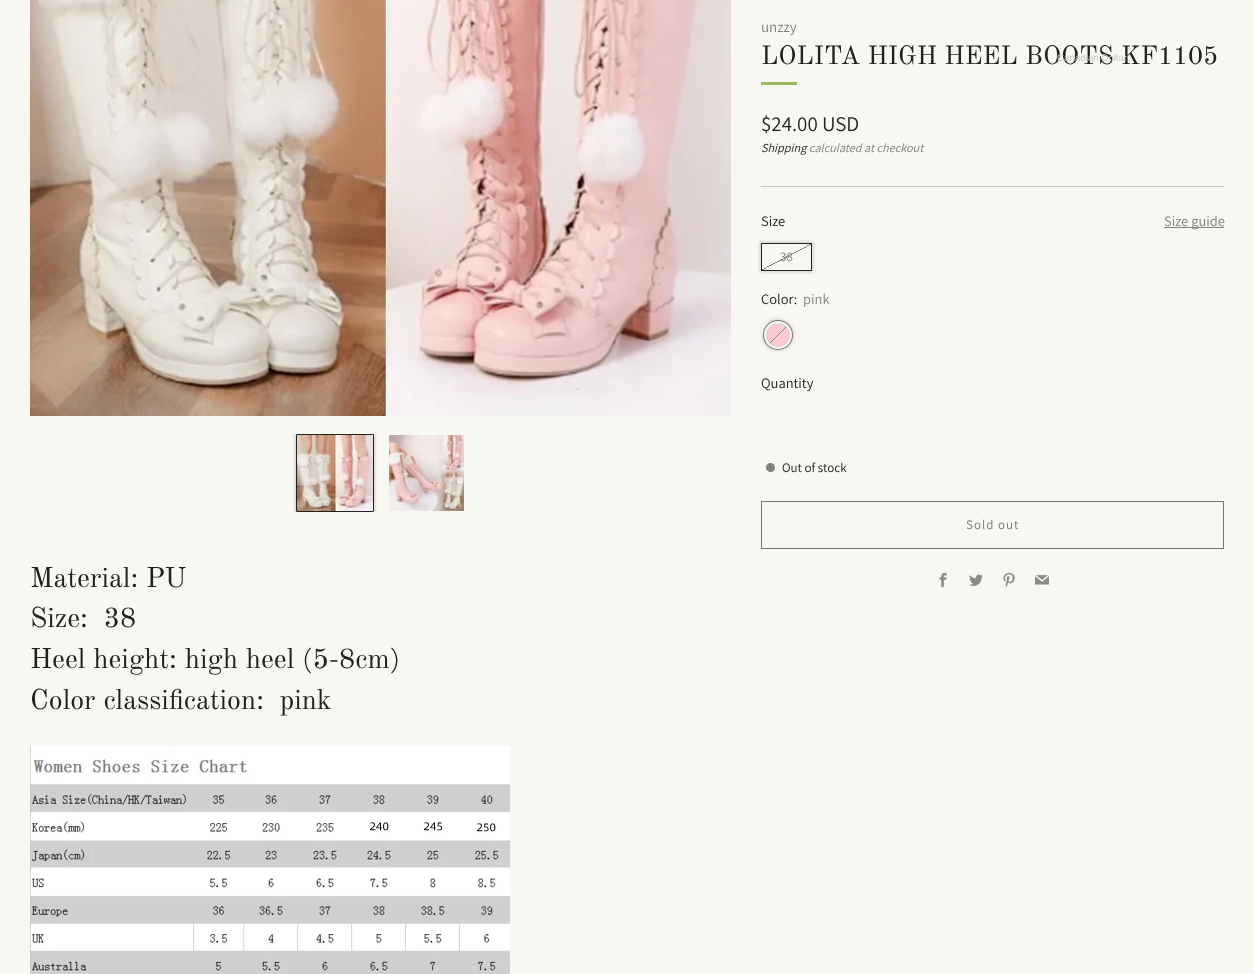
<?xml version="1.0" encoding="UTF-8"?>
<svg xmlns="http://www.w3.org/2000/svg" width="1254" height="974">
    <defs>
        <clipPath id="clip1"><rect x="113" y="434" width="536" height="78"/></clipPath>
        <filter id="blur1" x="-50%" y="-200%" width="200%" height="500%"><feGaussianBlur stdDeviation="1.5"/></filter>
        <clipPath id="clip2"><path d="M 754 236 H 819 V 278 H 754 Z M 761 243 H 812 V 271 H 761 Z" clip-rule="evenodd"/></clipPath>
        <linearGradient id="g1" gradientUnits="userSpaceOnUse" x1="797" y1="277" x2="776" y2="237"><stop offset="0.49" stop-color="#212121" stop-opacity="0"/><stop offset="0.49" stop-color="#212121" stop-opacity="0.55"/><stop offset="0.51" stop-color="#212121" stop-opacity="0.55"/><stop offset="0.51" stop-color="#212121" stop-opacity="0"/></linearGradient>
        <linearGradient id="g2" gradientUnits="userSpaceOnUse" x1="789" y1="346" x2="767" y2="324"><stop offset="0.48" stop-color="#4C4C4B" stop-opacity="0"/><stop offset="0.48" stop-color="#4C4C4B" stop-opacity="0.55"/><stop offset="0.52" stop-color="#4C4C4B" stop-opacity="0.55"/><stop offset="0.52" stop-color="#4C4C4B" stop-opacity="0"/></linearGradient>
    </defs>
    <rect width="100%" height="100%" fill="#F8F7F1"/>
    <image x="30" y="0" width="701" height="416" href="img_01.png"/>
    <g clip-path="url(#clip1)">
        <rect x="295" y="433" width="80" height="80" rx="2" fill="#212121" fill-opacity="0.2" filter="url(#blur1)"/>
    </g>
    <rect x="296.5" y="434.5" width="77" height="77" rx="0.5" fill="none" stroke="#212121"/>
    <image x="297" y="435" width="76" height="76" href="img_02.png"/>
    <image x="389" y="435" width="75" height="76" href="img_03.png"/>
    <text x="761" y="32" font-family="Assistant" font-size="15" fill="#82817F">unzzy</text>
    <text x="761" y="64" font-family="Old Standard TT" font-size="25.9" fill="#212121">LOLITA HIGH HEEL BOOTS KF1105</text>
    <rect x="761" y="82" width="36" height="3" fill="#98B859"/>
    <text x="761" y="131" font-family="Assistant" font-size="21" fill="#212121">$24.00 USD</text>
    <text x="761" y="152" font-family="Assistant" font-size="12.25" font-style="italic" fill="#212121">Shipping</text>
    <text x="809" y="152" font-family="Assistant" font-size="12.25" font-style="italic" fill="#82817F">calculated at checkout</text>
    <rect x="761" y="186" width="463" height="1" fill="#CDCCC7"/>
    <text x="761" y="226" font-family="Assistant" font-size="14.5" fill="#212121">Size</text>
    <rect x="1164" y="227" width="60" height="1" fill="#82817F"/>
    <text x="1164" y="226" font-family="Assistant" font-size="14.5" fill="#82817F">Size guide</text>
    <g clip-path="url(#clip2)">
        <rect x="760" y="242" width="53" height="30" fill="#212121" fill-opacity="0.2" filter="url(#blur1)"/>
    </g>
    <rect x="761.5" y="243.5" width="50" height="27" fill="none" stroke="#212121"/>
    <rect x="762" y="244" width="49" height="26" fill="url(#g1)"/>
    <text x="780" y="261" font-family="Assistant" font-size="13" fill="#82817F">38</text>
    <text x="761" y="304" font-family="Assistant" font-size="14.5" fill="#212121">Color:</text>
    <text x="803" y="304" font-family="Assistant" font-size="14.5" fill="#82817F">pink</text>
    <rect x="762" y="319" width="32" height="32" rx="16" fill="#4C4C4B" fill-opacity="0.2" filter="url(#blur1)"/>
    <circle cx="778" cy="335" r="13" fill="none" stroke="#4C4C4B" stroke-opacity="0.7" stroke-width="4"/>
    <circle cx="778" cy="335" r="12.5" fill="none" stroke="#F8F7F1" stroke-width="3"/>
    <circle cx="778" cy="335" r="11.5" fill="none" stroke="#4C4C4B" stroke-opacity="0.2"/>
    <circle cx="778" cy="335" r="11" fill="#FECBD3"/>
    <circle cx="778" cy="335" r="11" fill="url(#g2)"/>
    <text x="761" y="388" font-family="Assistant" font-size="14.5" fill="#212121">Quantity</text>
    <circle cx="770.5" cy="467.5" r="4.5" fill="#82817F"/>
    <text x="782" y="472" font-family="Assistant" font-size="13" fill="#212121">Out of stock</text>
    <rect x="761.5" y="501.5" width="462" height="47" fill="none" stroke="#777774"/>
    <text x="966" y="529" font-family="Assistant" font-size="13" letter-spacing="1" fill="#777774">Sold out</text>
    <image x="939" y="572" width="8" height="15" href="img_04.png"/>
    <image x="969" y="574" width="14" height="12" href="img_05.png"/>
    <image x="1003" y="572" width="12" height="15" href="img_06.png"/>
    <image x="1035" y="575" width="14" height="10" href="img_07.png"/>
    <text font-family="Old Standard TT" font-size="28" fill="#212121" xml:space="preserve"><tspan x="30" y="587">Material: PU</tspan><tspan x="30" y="627">Size:  38</tspan><tspan x="30" y="668">Heel height: high heel (5-8cm)</tspan><tspan x="30" y="709">Color classification:  pink</tspan></text>
    <image x="30" y="746" width="480" height="228" href="img_08.png"/>
    <text x="1057" y="61" font-family="Liberation Sans" font-size="9.75" fill="#CBCBC6">Canadian Dollar</text>
</svg>
